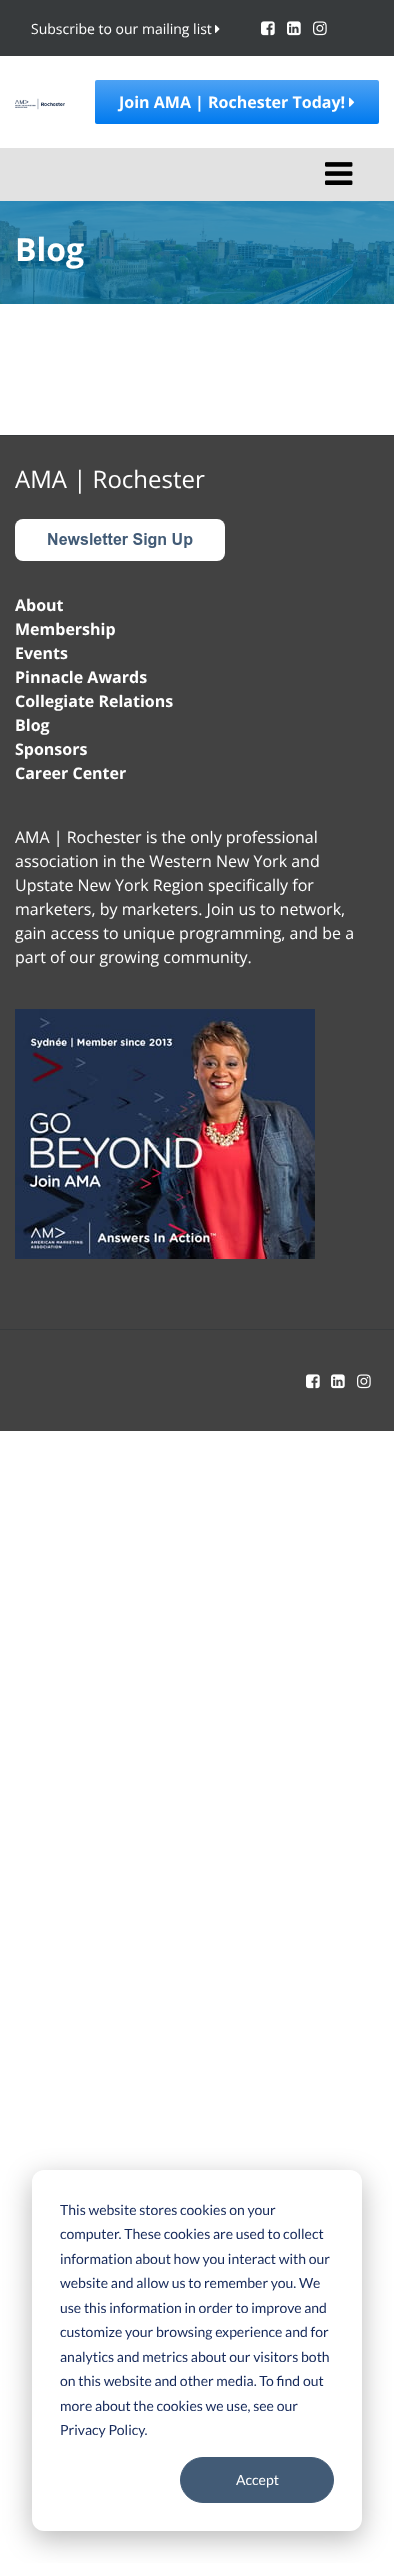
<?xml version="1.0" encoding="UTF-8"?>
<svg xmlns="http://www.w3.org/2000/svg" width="394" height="2563">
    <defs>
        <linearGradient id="g1" gradientUnits="userSpaceOnUse" x1="237" y1="80" x2="237" y2="124"><stop offset="0" stop-color="#4DA2F4"/><stop offset="1" stop-color="#007AEF"/></linearGradient>
        <filter id="blur1" x="-50%" y="-200%" width="200%" height="500%"><feGaussianBlur stdDeviation="14"/></filter>
    </defs>
    <rect width="100%" height="100%" fill="#FFFFFF"/>
    <rect x="0" y="0" width="394" height="56" fill="#373A3C"/>
    <text x="31" y="34" font-family="Open Sans" font-size="14" fill="#FFFFFF">Subscribe to our mailing list</text>
    <image x="215" y="25" width="5" height="8" href="img_01.png"/>
    <image x="261" y="21" width="14" height="15" href="img_02.png"/>
    <image x="287" y="21" width="14" height="15" href="img_03.png"/>
    <image x="313" y="21" width="14" height="15" href="img_04.png"/>
    <image x="15" y="98" width="50" height="12" href="img_05.png"/>
    <rect x="95" y="80" width="284" height="44" rx="2" fill="url(#g1)"/>
    <text x="119" y="108" font-family="Open Sans" font-size="16" font-weight="700" fill="#FFFFFF">Join AMA | Rochester Today!</text>
    <image x="349" y="97" width="6" height="10" href="img_06.png"/>
    <rect x="0" y="148" width="394" height="53" fill="#E2E2E2"/>
    <image x="325" y="162" width="28" height="23" href="img_07.png"/>
    <image x="0" y="201" width="394" height="103" href="img_08.png"/>
    <text x="15" y="261" font-family="Open Sans" font-size="32" font-weight="700" fill="#FFFFFF">Blog</text>
    <rect x="0" y="436" width="394" height="893" fill="#424242"/>
    <rect x="0" y="435" width="394" height="1" fill="#373A3C"/>
    <text x="15" y="488" font-family="Open Sans" font-size="24" fill="#FFFFFF">AMA | Rochester</text>
    <image x="15" y="519" width="210" height="42" href="img_09.png"/>
    <text font-family="Open Sans" font-size="16" font-weight="700" fill="#FFFFFF">
        <tspan x="15" y="611">About</tspan>
        <tspan x="15" y="635">Membership</tspan>
        <tspan x="15" y="659">Events</tspan>
        <tspan x="15" y="683">Pinnacle Awards</tspan>
        <tspan x="15" y="707">Collegiate Relations</tspan>
        <tspan x="15" y="731">Blog</tspan>
        <tspan x="15" y="755">Sponsors</tspan>
        <tspan x="15" y="779">Career Center</tspan>
    </text>
    <text font-family="Open Sans" font-size="16" fill="#FFFFFF">
        <tspan x="15" y="843">AMA | Rochester is the only professional</tspan>
        <tspan x="15" y="867">association in the Western New York and</tspan>
        <tspan x="15" y="891">Upstate New York Region specifically for</tspan>
        <tspan x="15" y="915">marketers, by marketers. Join us to network,</tspan>
        <tspan x="15" y="939">gain access to unique programming, and be a</tspan>
        <tspan x="15" y="963">part of our growing community.</tspan>
    </text>
    <image x="15" y="1009" width="300" height="250" href="img_10.png"/>
    <rect x="0" y="1330" width="394" height="101" fill="#424242"/>
    <rect x="0" y="1329" width="394" height="1" fill="#373A3C"/>
    <image x="306" y="1374" width="14" height="15" href="img_11.png"/>
    <image x="331" y="1374" width="14" height="15" href="img_12.png"/>
    <image x="357" y="1374" width="14" height="15" href="img_13.png"/>
    <rect x="32" y="2178" width="330" height="361" rx="12" fill="#000000" fill-opacity="0.28" filter="url(#blur1)"/>
    <rect x="32" y="2170" width="330" height="361" rx="12" fill="#FFFFFF"/>
    <text font-family="Lato" font-size="14" fill="#15295A">
        <tspan x="60" y="2215">This website stores cookies on your</tspan>
        <tspan x="60" y="2239">computer. These cookies are used to collect</tspan>
        <tspan x="60" y="2264">information about how you interact with our</tspan>
        <tspan x="60" y="2288">website and allow us to remember you. We</tspan>
        <tspan x="60" y="2313">use this information in order to improve and</tspan>
        <tspan x="60" y="2337">customize your browsing experience and for</tspan>
        <tspan x="60" y="2362">analytics and metrics about our visitors both</tspan>
        <tspan x="60" y="2386">on this website and other media. To find out</tspan>
        <tspan x="60" y="2411">more about the cookies we use, see our</tspan>
        <tspan x="60" y="2435">Privacy Policy.</tspan>
    </text>
    <rect x="180.5" y="2457.5" width="153" height="45" rx="22.5" fill="#425B76" stroke="#425B76"/>
    <text x="236" y="2485" font-family="Lato" font-size="14" fill="#FFFFFF">Accept</text>
</svg>
